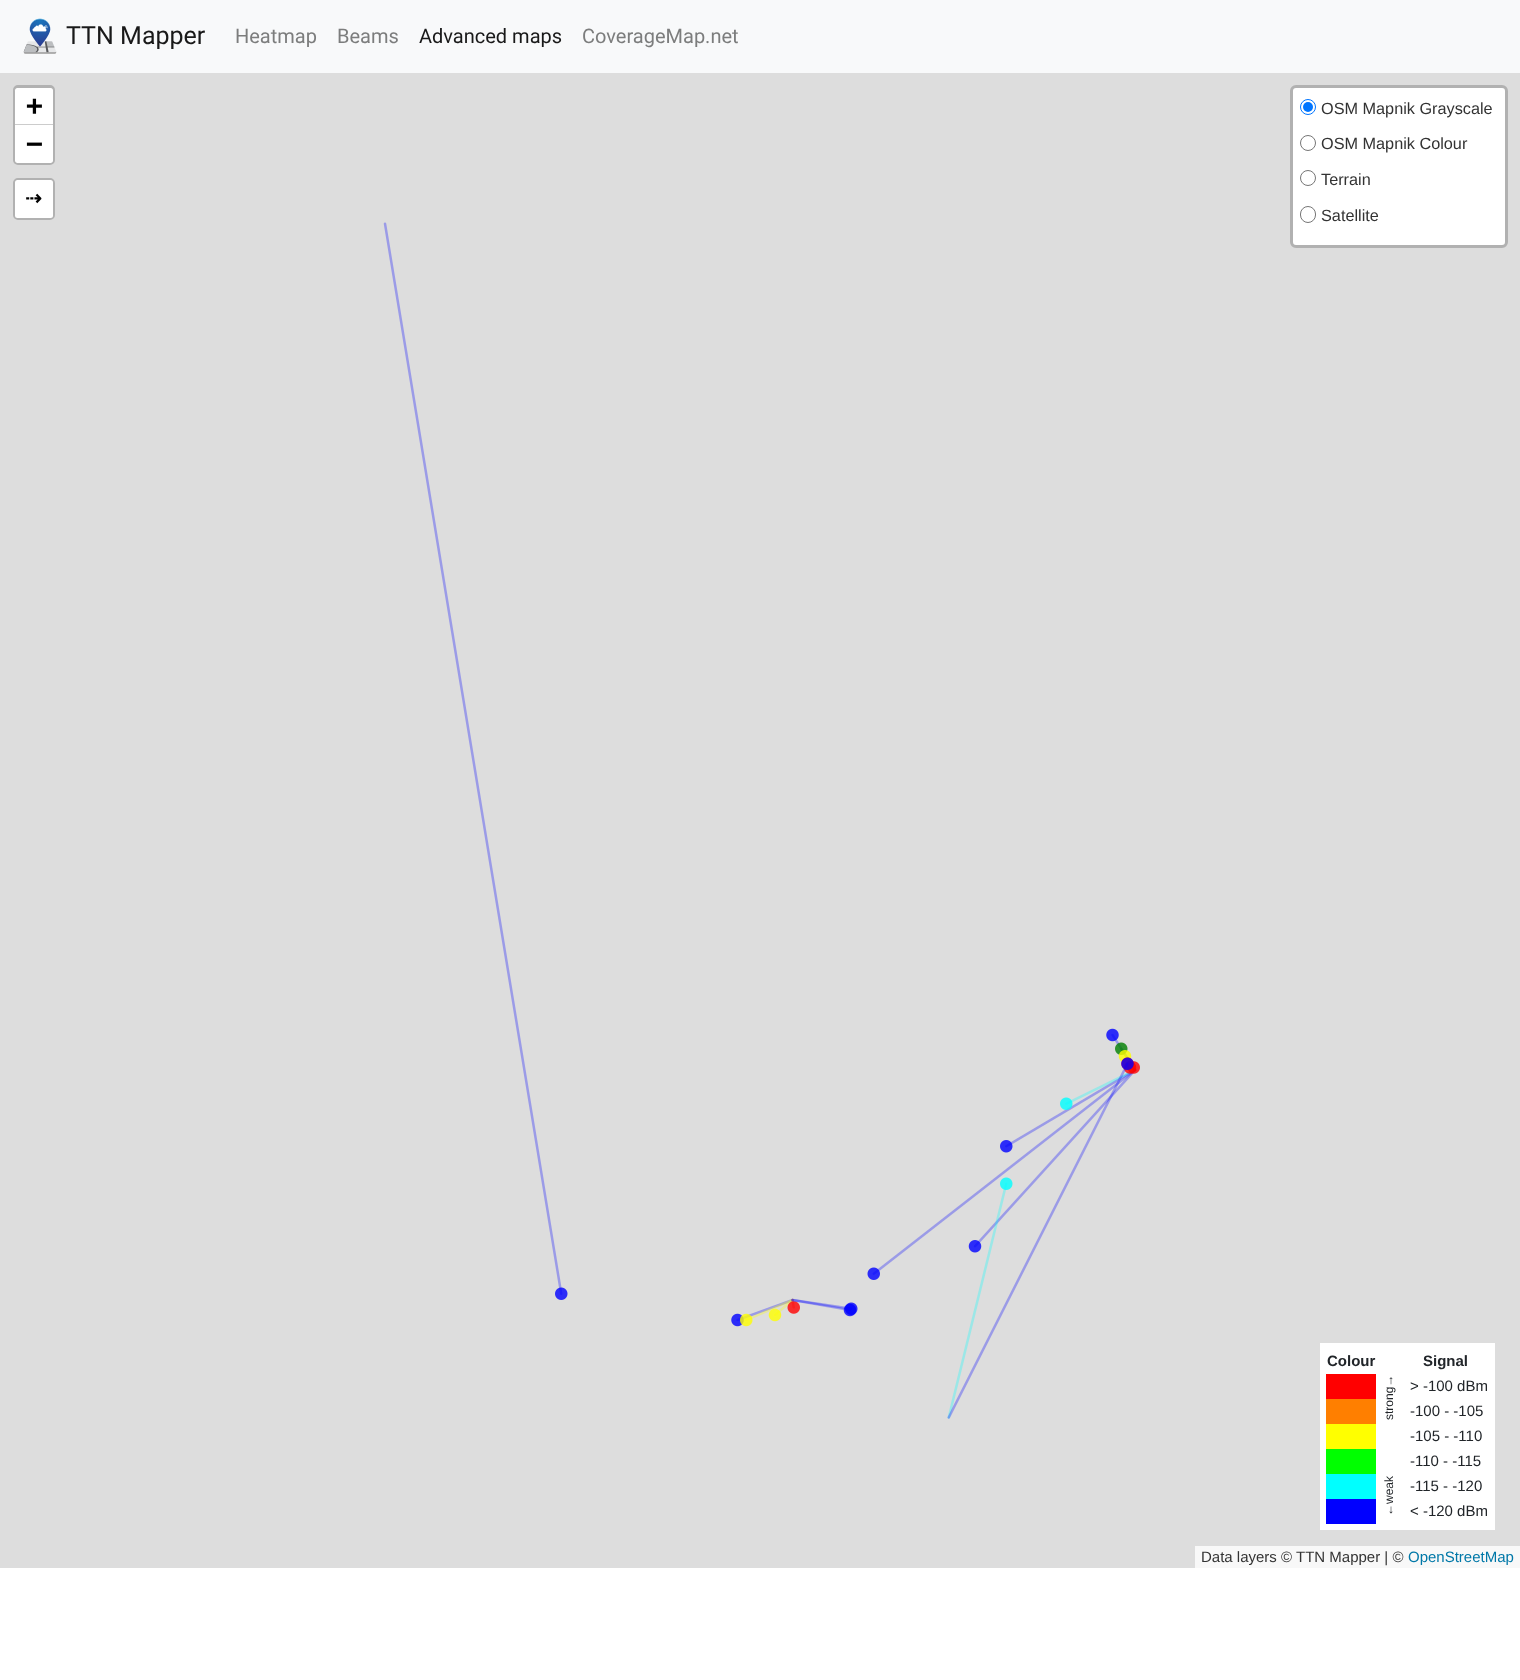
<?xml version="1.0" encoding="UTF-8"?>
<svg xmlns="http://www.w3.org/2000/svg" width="1520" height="1680">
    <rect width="100%" height="100%" fill="#FFFFFF"/>
    <rect x="0" y="0" width="1520" height="73" fill="#F8F9FA"/>
    <image x="23" y="18" width="34" height="36" href="img_01.png"/>
    <text x="66" y="44" font-family="Roboto" font-size="25" fill="#191919">TTN Mapper</text>
    <text x="235" y="43" font-family="Roboto" font-size="20" fill="#7C7D7D">Heatmap</text>
    <text x="337" y="43" font-family="Roboto" font-size="20" fill="#7C7D7D">Beams</text>
    <text x="419" y="43" font-family="Roboto" font-size="20" fill="#191919">Advanced maps</text>
    <text x="582" y="43" font-family="Roboto" font-size="20" fill="#7C7D7D">CoverageMap.net</text>
    <rect x="0" y="73" width="1520" height="1495" fill="#DDDDDD"/>
    <rect x="14.5" y="86.5" width="39" height="77" rx="3.5" fill="none" stroke="#B1B1B1" stroke-width="3"/>
    <path d="M 17.5 88 H 50.5 C 52 88 53 89 53 90.5 V 125 H 15 V 90.5 C 15 89 16 88 17.5 88 Z" fill="#FFFFFF"/>
    <rect x="15" y="124" width="38" height="1" fill="#CCCCCC"/>
    <text x="26" y="115" font-family="DejaVu Sans Mono" font-size="28" font-weight="700" fill="#000000">+</text>
    <path d="M 15 125 H 53 V 160.5 C 53 162 52 163 50.5 163 H 17.5 C 16 163 15 162 15 160.5 Z" fill="#FFFFFF"/>
    <text x="26" y="153" font-family="DejaVu Sans Mono" font-size="28" font-weight="700" fill="#000000">−</text>
    <rect x="14.5" y="179.5" width="39" height="39" rx="3.5" fill="none" stroke="#B1B1B1" stroke-width="3"/>
    <rect x="15" y="180" width="38" height="38" rx="2.5" fill="#FFFFFF"/>
    <text x="25" y="205" font-family="DejaVu Sans" font-size="20" font-weight="700" fill="#000000">⇢</text>
    <rect x="1291.5" y="86.5" width="215" height="160" rx="4.5" fill="#FFFFFF" stroke="#B1B1B1" stroke-width="3"/>
    <circle cx="1308" cy="107" r="7.5" fill="none" stroke="#0075FF"/>
    <circle cx="1308" cy="107" r="5" fill="#0075FF"/>
    <text x="1321" y="114" font-family="Liberation Sans" font-size="16.25" fill="#333333">OSM Mapnik Grayscale</text>
    <circle cx="1308" cy="143" r="7.5" fill="none" stroke="#767676"/>
    <text x="1321" y="149" font-family="Liberation Sans" font-size="16.25" fill="#333333">OSM Mapnik Colour</text>
    <circle cx="1308" cy="178" r="7.5" fill="none" stroke="#767676"/>
    <text x="1321" y="185" font-family="Liberation Sans" font-size="16.25" fill="#333333">Terrain</text>
    <rect x="1300.5" y="206.5" width="15" height="16" rx="7.5" fill="none" stroke="#767676"/>
    <text x="1321" y="221" font-family="Liberation Sans" font-size="16.25" fill="#333333">Satellite</text>
    <rect x="1195" y="1546" width="325" height="22" fill="#F8F8F8"/>
    <text x="1201" y="1562" font-family="Liberation Sans" font-size="15" fill="#333333">Data layers © TTN Mapper | ©</text>
    <text x="1408" y="1562" font-family="Liberation Sans" font-size="15" fill="#0078A8">OpenStreetMap</text>
    <image x="383" y="222" width="757" height="1197" href="img_02.png"/>
    <rect x="1320" y="1343" width="175" height="187" fill="#FFFFFF"/>
    <text x="1327" y="1366" font-family="Liberation Sans" font-size="15" font-weight="700" fill="#212529">Colour</text>
    <text x="1423" y="1366" font-family="Liberation Sans" font-size="15" font-weight="700" fill="#212529">Signal</text>
    <rect x="1326" y="1374" width="50" height="25" fill="#FF0000"/>
    <text x="1393" y="1420" transform="rotate(-90 1393 1420)" font-family="Liberation Sans" font-size="12" fill="#212529">strong→</text>
    <text x="1410" y="1391" font-family="Liberation Sans" font-size="15" fill="#212529">&gt; -100 dBm</text>
    <rect x="1326" y="1399" width="50" height="25" fill="#FF7F00"/>
    <text x="1410" y="1416" font-family="Liberation Sans" font-size="15" fill="#212529">-100 - -105</text>
    <rect x="1326" y="1424" width="50" height="25" fill="#FFFF00"/>
    <text x="1410" y="1441" font-family="Liberation Sans" font-size="15" fill="#212529">-105 - -110</text>
    <rect x="1326" y="1449" width="50" height="25" fill="#00FF00"/>
    <text x="1410" y="1466" font-family="Liberation Sans" font-size="15" fill="#212529">-110 - -115</text>
    <text x="1393" y="1516" transform="rotate(-90 1393 1516)" font-family="Liberation Sans" font-size="12" fill="#212529">←weak</text>
    <rect x="1326" y="1474" width="50" height="25" fill="#00FFFF"/>
    <text x="1410" y="1491" font-family="Liberation Sans" font-size="15" fill="#212529">-115 - -120</text>
    <rect x="1326" y="1499" width="50" height="25" fill="#0000FF"/>
    <text x="1410" y="1516" font-family="Liberation Sans" font-size="15" fill="#212529">&lt; -120 dBm</text>
</svg>
